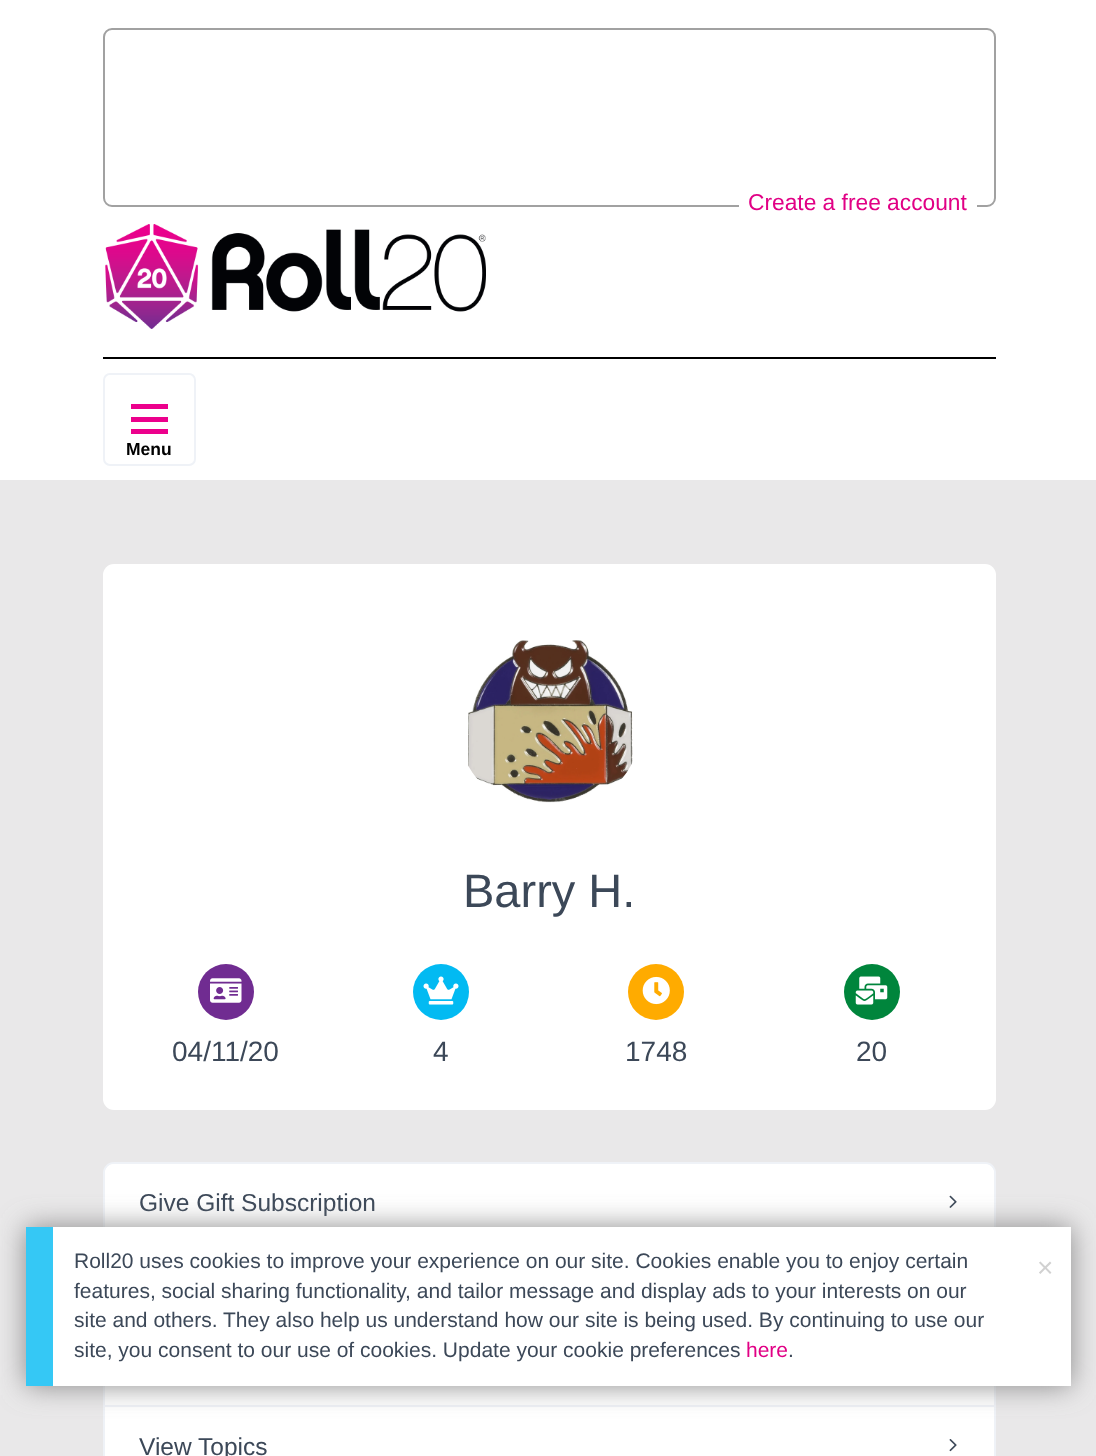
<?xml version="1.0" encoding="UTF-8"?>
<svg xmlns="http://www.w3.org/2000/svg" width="1096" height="1456">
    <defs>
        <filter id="blur1" x="-50%" y="-200%" width="200%" height="500%"><feGaussianBlur stdDeviation="14"/></filter>
    </defs>
    <rect width="100%" height="100%" fill="#FFFFFF"/>
    <rect x="104" y="29" width="891" height="177" rx="8" fill="none" stroke="#A1A1A1" stroke-width="2"/>
    <rect x="739" y="205" width="238" height="2" fill="#FFFFFF"/>
    <text x="748" y="210" font-family="Liberation Sans" font-size="22.75" fill="#E10085">Create a free account</text>
    <image x="105" y="224" width="381" height="105" href="img_01.png"/>
    <rect x="103" y="357" width="893" height="2" fill="#000000"/>
    <rect x="104" y="374" width="91" height="91" rx="6" fill="none" stroke="#EFF2F7" stroke-width="2"/>
    <rect x="131" y="404" width="37" height="5" fill="#EC008C"/>
    <rect x="131" y="417" width="37" height="5" fill="#EC008C"/>
    <rect x="131" y="429" width="37" height="5" fill="#EC008C"/>
    <text x="126" y="455" font-family="Liberation Sans" font-size="17.5" font-weight="700" fill="#000000">Menu</text>
    <rect x="0" y="480" width="1096" height="976" fill="#E9E8E9"/>
    <rect x="103" y="564" width="893" height="546" rx="11" fill="#FFFFFF"/>
    <image x="468" y="640" width="165" height="163" href="img_02.png"/>
    <text x="463" y="907" font-family="Liberation Sans" font-size="47" fill="#3C4858">Barry H.</text>
    <circle cx="226" cy="992" r="28" fill="#702C91"/>
    <image x="210" y="978" width="32" height="25" href="img_03.png"/>
    <text x="172" y="1061" font-family="Liberation Sans" font-size="28" fill="#3C4858">04/11/20</text>
    <circle cx="441" cy="992" r="28" fill="#02BAF2"/>
    <image x="423" y="976" width="36" height="29" href="img_04.png"/>
    <text x="433" y="1061" font-family="Liberation Sans" font-size="28" fill="#3C4858">4</text>
    <circle cx="656" cy="992" r="28" fill="#FFAB00"/>
    <image x="642" y="976" width="28" height="29" href="img_05.png"/>
    <text x="625" y="1061" font-family="Liberation Sans" font-size="28" fill="#3C4858">1748</text>
    <circle cx="872" cy="992" r="28" fill="#00853C"/>
    <image x="855" y="976" width="33" height="29" href="img_06.png"/>
    <text x="856" y="1061" font-family="Liberation Sans" font-size="28" fill="#3C4858">20</text>
    <rect x="104" y="1163" width="891" height="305" rx="10" fill="#FFFFFF" stroke="#EFF2F7" stroke-width="2"/>
    <path d="M 114 1164 H 985 C 990 1164 994 1168 994 1173 V 1244 H 105 V 1173 C 105 1168 109 1164 114 1164 Z" fill="#FFFFFF"/>
    <text x="139" y="1211" font-family="Liberation Sans" font-size="24.5" fill="#3C4858">Give Gift Subscription</text>
    <image x="949" y="1195" width="8" height="13" href="img_07.png"/>
    <rect x="105" y="1405" width="889" height="2" fill="#EFF2F7"/>
    <text x="139" y="1455" font-family="Liberation Sans" font-size="24.5" fill="#3C4858">View Topics</text>
    <image x="949" y="1439" width="8" height="13" href="img_08.png"/>
    <rect x="26" y="1227" width="1045" height="159" fill="#888888" filter="url(#blur1)"/>
    <rect x="53" y="1227" width="1018" height="159" fill="#FFFFFF"/>
    <rect x="26" y="1227" width="27" height="159" fill="#35C8F5"/>
    <text font-family="Liberation Sans" font-size="21" fill="#3C4858">
        <tspan x="74" y="1268">Roll20 uses cookies to improve your experience on our site. Cookies enable you to enjoy certain</tspan>
        <tspan x="74" y="1298">features, social sharing functionality, and tailor message and display ads to your interests on our</tspan>
        <tspan x="74" y="1327">site and others. They also help us understand how our site is being used. By continuing to use our</tspan>
        <tspan x="74" y="1357">site, you consent to our use of cookies. Update your cookie preferences</tspan>
    </text>
    <text x="746" y="1357" font-family="Liberation Sans" font-size="21" fill="#E10085">here</text>
    <text x="788" y="1357" font-family="Liberation Sans" font-size="21" fill="#3C4858">.</text>
    <text x="1037" y="1277" font-family="Liberation Sans" font-size="28" fill="#D1D1D1">×</text>
</svg>
